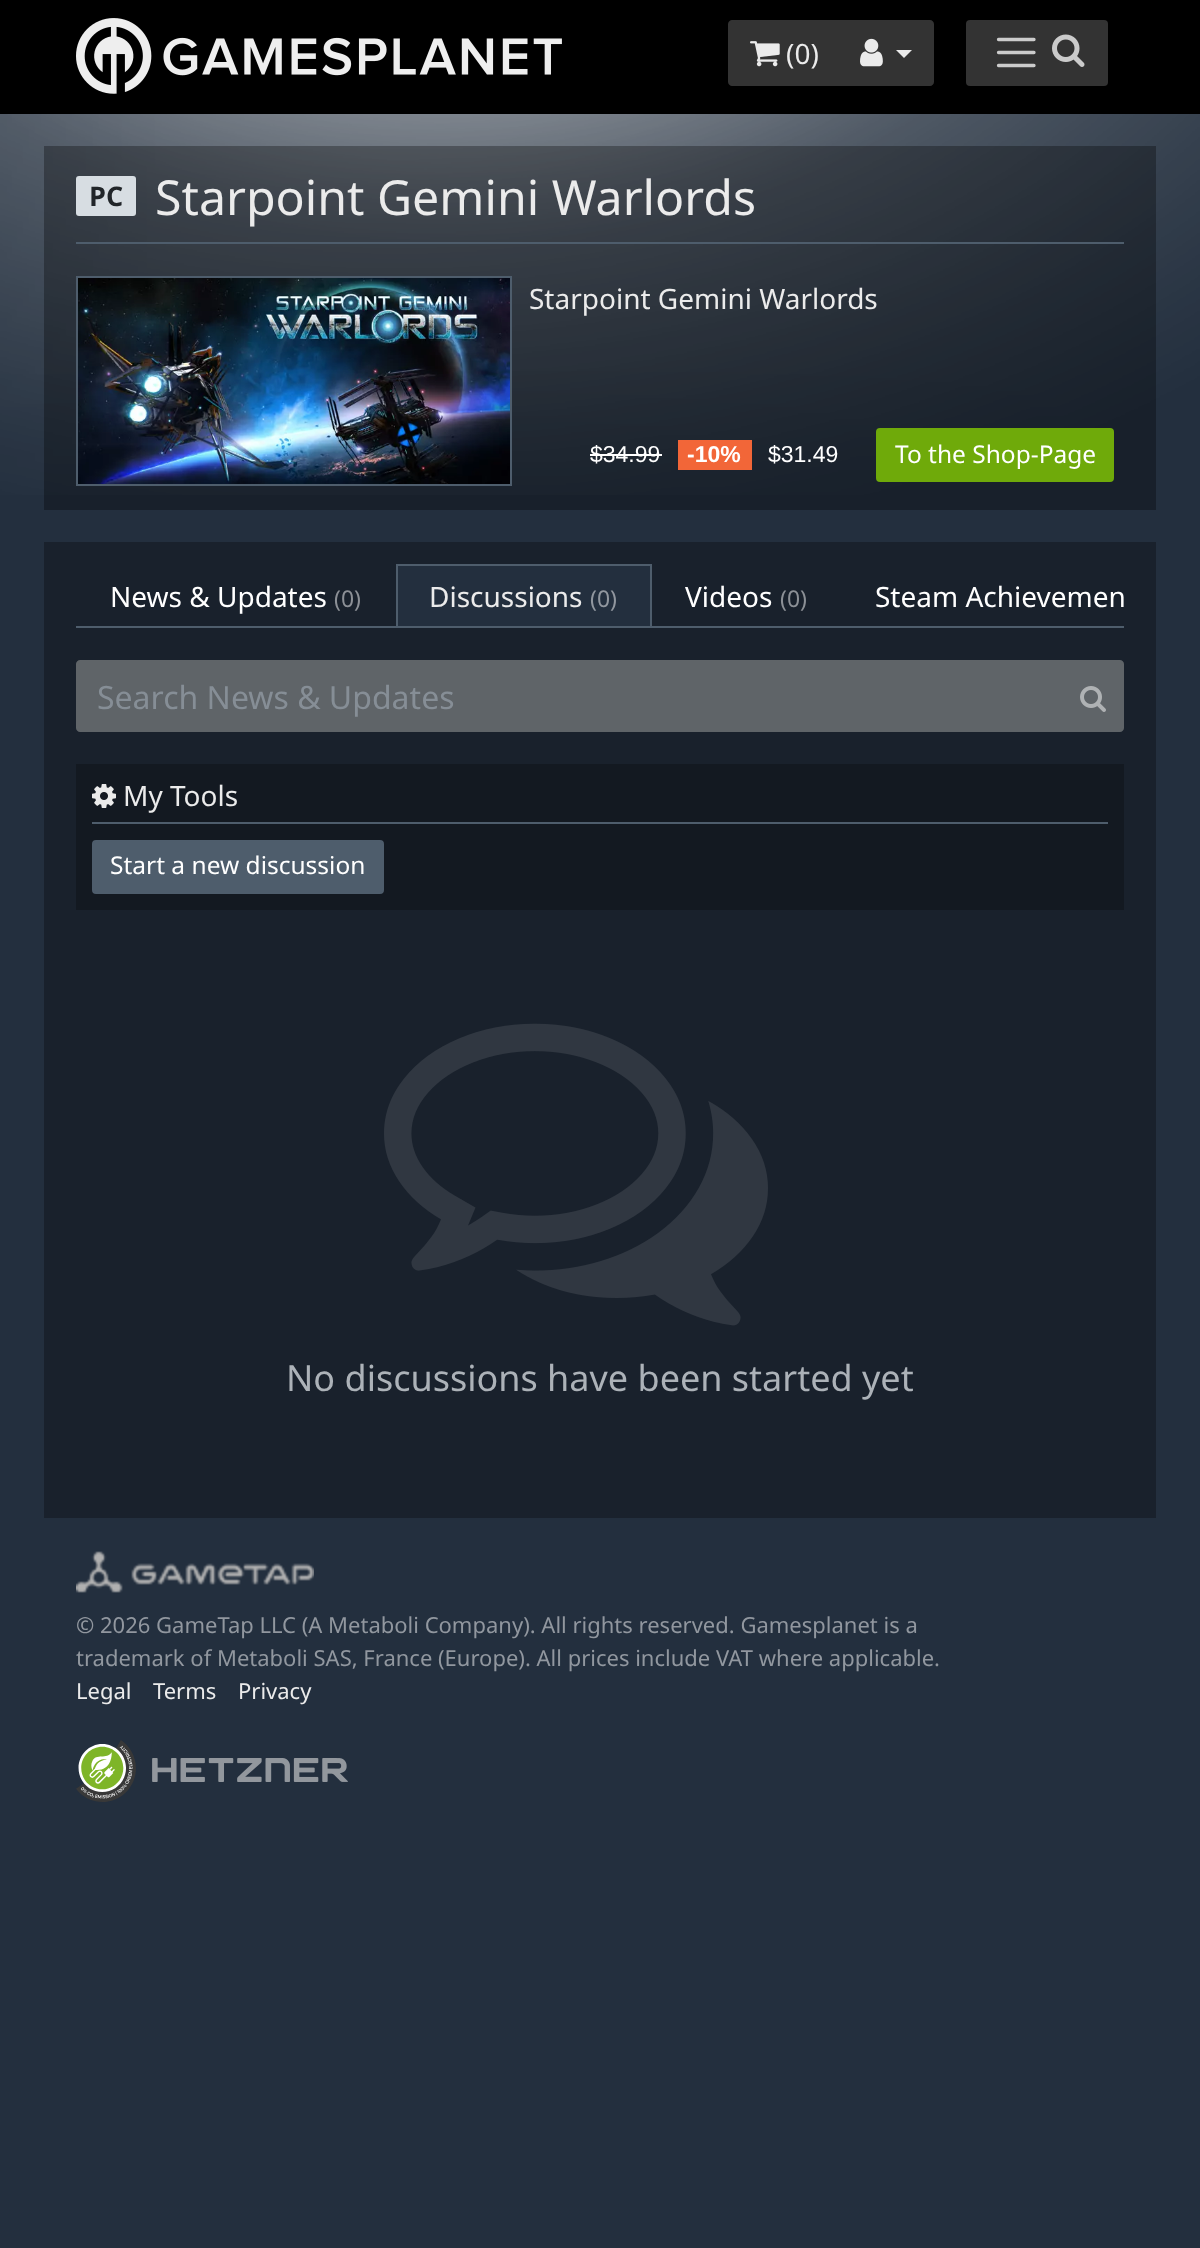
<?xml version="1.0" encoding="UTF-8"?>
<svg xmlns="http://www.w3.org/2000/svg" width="1200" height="2248">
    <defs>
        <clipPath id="clip1"><rect x="76" y="564" width="1048" height="62"/></clipPath>
    </defs>
    <rect width="100%" height="100%" fill="#232F3E"/>
    <image x="0" y="114" width="1200" height="381" href="img_01.png"/>
    <rect x="0" y="0" width="1200" height="114" fill="#000000"/>
    <image x="76" y="18" width="486" height="76" href="img_02.png"/>
    <path d="M 732 20 H 840 V 86 H 732 C 730 86 728 84 728 82 V 24 C 728 22 730 20 732 20 Z" fill="#333333"/>
    <image x="750" y="41" width="30" height="26" href="img_03.png"/>
    <text x="786" y="64" font-family="Noto Sans" font-size="28" fill="#EBEBEB">(0)</text>
    <path d="M 838 20 H 930 C 932 20 934 22 934 24 V 82 C 934 84 932 86 930 86 H 838 Z" fill="#333333"/>
    <image x="860" y="38" width="23" height="29" href="img_04.png"/>
    <path d="M 896 50 H 912 L 904 58 Z" fill="#EBEBEB"/>
    <rect x="966" y="20" width="142" height="66" rx="4" fill="#333333"/>
    <path d="M 998.5 39.5 H 1034 M 998.5 52.5 H 1034 M 998.5 65.5 H 1034" fill="none" stroke="#CCCCCC" stroke-width="3.3" stroke-linecap="round"/>
    <image x="1052" y="34" width="33" height="33" href="img_05.png"/>
    <rect x="44" y="146" width="1112" height="364" fill="#000000" fill-opacity="0.3"/>
    <rect x="76" y="176" width="60" height="40" rx="3" fill="#D7DDE2"/>
    <text x="89" y="206" font-family="Noto Sans" font-size="27" font-weight="700" fill="#212529">PC</text>
    <rect x="76" y="242" width="1048" height="2" fill="#4E5D6C"/>
    <text x="155" y="215" font-family="Noto Sans" font-size="48.25" fill="#EBEBEB">Starpoint Gemini Warlords</text>
    <rect x="77" y="277" width="434" height="208" fill="none" stroke="#4E5D6C" stroke-width="2"/>
    <image x="78" y="278" width="432" height="206" href="img_06.png"/>
    <text x="529" y="309" font-family="Noto Sans" font-size="28" fill="#EBEBEB">Starpoint Gemini Warlords</text>
    <text x="590" y="462" font-family="Liberation Sans" font-size="23" fill="#FFFFFF">$34.99</text>
    <rect x="590" y="454" width="72" height="2" fill="#FFFFFF"/>
    <rect x="678" y="440" width="74" height="30" fill="#F26638"/>
    <text x="687" y="462" font-family="Liberation Sans" font-size="23" font-weight="700" fill="#FFFFFF">-10%</text>
    <text x="768" y="462" font-family="Liberation Sans" font-size="23" fill="#FFFFFF">$31.49</text>
    <rect x="877" y="429" width="236" height="52" rx="3" fill="#6FAA0A" stroke="#6FAA0A" stroke-width="2"/>
    <text x="895" y="463" font-family="Noto Sans" font-size="24.5" fill="#FFFFFF">To the Shop-Page</text>
    <rect x="44" y="542" width="1112" height="976" fill="#19212C"/>
    <rect x="76" y="626" width="1048" height="2" fill="#4E5D6C"/>
    <text x="110" y="607" font-family="Noto Sans" font-size="28" fill="#FFFFFF">News &amp; Updates</text>
    <text x="334" y="607" font-family="Noto Sans" font-size="23" fill="#8C9096">(0)</text>
    <rect x="398" y="566" width="252" height="60" fill="#232F3E"/>
    <g clip-path="url(#clip1)">
        <rect x="397" y="565" width="254" height="62" fill="none" stroke="#4E5D6C" stroke-width="2"/>
    </g>
    <text x="429" y="607" font-family="Noto Sans" font-size="28" fill="#EBEBEB">Discussions</text>
    <text x="590" y="607" font-family="Noto Sans" font-size="23" fill="#91979F">(0)</text>
    <text x="685" y="607" font-family="Noto Sans" font-size="28" fill="#FFFFFF">Videos</text>
    <text x="780" y="607" font-family="Noto Sans" font-size="23" fill="#8C9096">(0)</text>
    <text x="875" y="607" font-family="Noto Sans" font-size="28" fill="#FFFFFF">Steam Achievemen</text>
    <path d="M 80 661 H 1063 V 731 H 80 C 78.5 731 77 729.5 77 728 V 664 C 77 662.5 78.5 661 80 661 Z" fill="#5F6468" stroke="#5F6468" stroke-width="2"/>
    <text x="97" y="709" font-family="Noto Sans" font-size="32" fill="#868E96">Search News &amp; Updates</text>
    <path d="M 1063 661 H 1120 C 1121.5 661 1123 662.5 1123 664 V 728 C 1123 729.5 1121.5 731 1120 731 H 1063 Z" fill="#5F6468" stroke="#5F6468" stroke-width="2"/>
    <image x="1080" y="686" width="26" height="26" href="img_07.png"/>
    <rect x="76" y="764" width="1048" height="146" fill="#131921"/>
    <rect x="92" y="822" width="1016" height="2" fill="#4E5D6C"/>
    <image x="92" y="784" width="24" height="24" href="img_08.png"/>
    <text x="123" y="806" font-family="Noto Sans" font-size="28" fill="#EBEBEB">My Tools</text>
    <rect x="93" y="841" width="290" height="52" rx="3" fill="#4E5D6C" stroke="#4E5D6C" stroke-width="2"/>
    <text x="110" y="874" font-family="Noto Sans" font-size="24.5" fill="#FFFFFF">Start a new discussion</text>
    <image x="384" y="1023" width="384" height="303" href="img_09.png"/>
    <text x="286" y="1391" font-family="Noto Sans" font-size="36" fill="#ACB2B8">No discussions have been started yet</text>
    <image x="76" y="1551" width="238" height="42" href="img_10.png"/>
    <text font-family="Noto Sans" font-size="22" fill="#91979F">
        <tspan x="76" y="1633">© 2026 GameTap LLC (A Metaboli Company). All rights reserved. Gamesplanet is a</tspan>
        <tspan x="76" y="1666">trademark of Metaboli SAS, France (Europe). All prices include VAT where applicable.</tspan>
    </text>
    <text x="76" y="1699" font-family="Noto Sans" font-size="22" fill="#EBEBEB">Legal</text>
    <text x="153" y="1699" font-family="Noto Sans" font-size="22" fill="#EBEBEB">Terms</text>
    <text x="238" y="1699" font-family="Noto Sans" font-size="22" fill="#EBEBEB">Privacy</text>
    <image x="76" y="1740" width="60" height="62" href="img_11.png"/>
    <image x="152" y="1758" width="196" height="24" href="img_12.png"/>
</svg>
